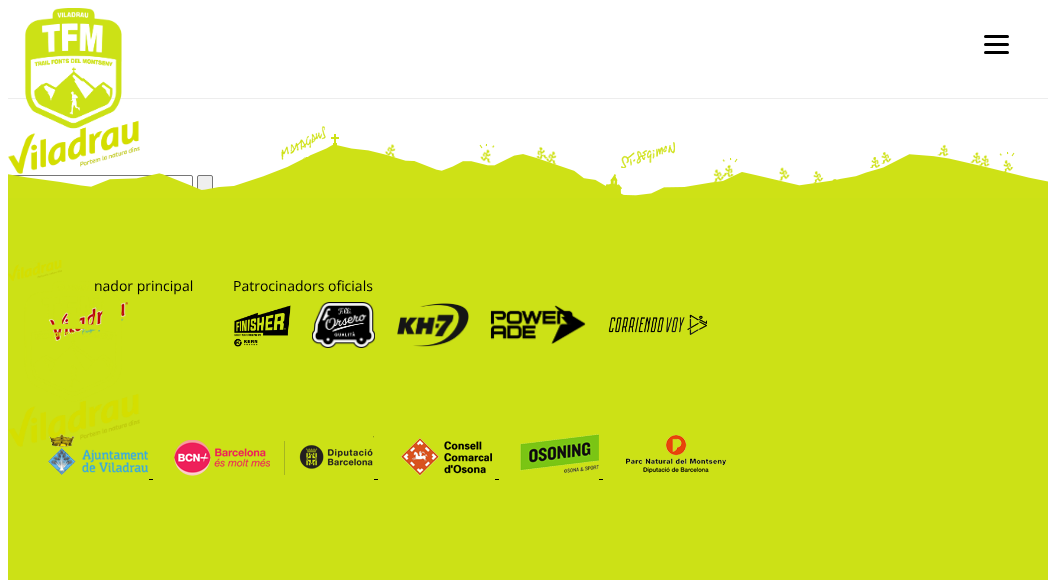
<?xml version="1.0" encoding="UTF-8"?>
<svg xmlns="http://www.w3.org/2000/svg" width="1056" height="580">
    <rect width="100%" height="100%" fill="#FFFFFF"/>
    <rect x="984" y="43" width="25" height="3" rx="1.5" fill="#000000"/>
    <rect x="984" y="35" width="25" height="3" rx="1.5" fill="#000000"/>
    <rect x="984" y="51" width="25" height="3" rx="1.5" fill="#000000"/>
    <rect x="8" y="98" width="1040" height="1" fill="#EDEDED"/>
    <image x="8" y="8" width="132" height="166" href="img_01.png"/>
    <rect x="8" y="198" width="1040" height="382" fill="#CCE116"/>
    <image x="8" y="260" width="54" height="21" href="img_02.png"/>
    <text x="94" y="291" font-family="Open Sans" font-size="14" fill="#000000">nador principal</text>
    <image x="48" y="302" width="80" height="39" href="img_05.png"/>
    <image x="48" y="433" width="100" height="42" href="img_11.png"/>
    <image x="8" y="281" width="132" height="166" href="img_03.png"/>
    <rect x="8.5" y="175.5" width="184" height="20" rx="1.5" fill="none" stroke="#767676"/>
    <rect x="197.5" y="175.5" width="15" height="20" rx="1.5" fill="#EFEFEF" stroke="#767676"/>
    <image x="8" y="126" width="1040" height="72" href="img_04.png"/>
    <text x="233" y="291" font-family="Open Sans" font-size="14" fill="#000000">Patrocinadors oficials</text>
    <image x="234" y="305" width="57" height="42" href="img_06.png"/>
    <image x="312" y="302" width="63" height="46" href="img_07.png"/>
    <image x="397" y="303" width="72" height="44" href="img_08.png"/>
    <image x="490" y="305" width="96" height="39" href="img_09.png"/>
    <image x="608" y="314" width="99" height="21" href="img_10.png"/>
    <image x="174" y="436" width="200" height="40" href="img_12.png"/>
    <image x="401" y="438" width="91" height="38" href="img_13.png"/>
    <image x="520" y="434" width="79" height="39" href="img_14.png"/>
    <image x="626" y="435" width="100" height="38" href="img_15.png"/>
    <rect x="149" y="479" width="4" height="1" fill="#000000"/>
    <rect x="374" y="479" width="4" height="1" fill="#000000"/>
    <rect x="495" y="479" width="4" height="1" fill="#000000"/>
    <rect x="599" y="479" width="4" height="1" fill="#000000"/>
</svg>
